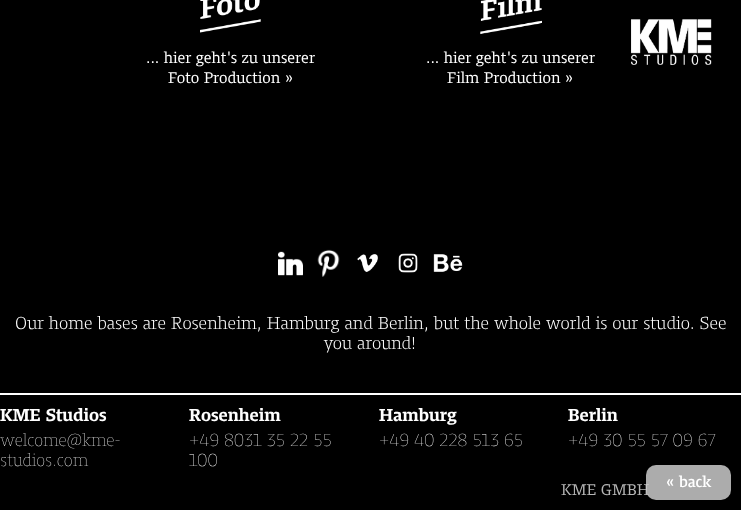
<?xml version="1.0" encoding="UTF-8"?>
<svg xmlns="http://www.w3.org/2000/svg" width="741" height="510">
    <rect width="100%" height="100%" fill="#000000"/>
    <image x="200" y="0" width="61" height="33" href="img_01.png"/>
    <text x="146" y="63" font-family="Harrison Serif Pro" font-size="16" fill="#FFFFFF">... hier geht's zu unserer</text>
    <text x="168" y="83" font-family="Harrison Serif Pro" font-size="16" fill="#FFFFFF">Foto Production »</text>
    <image x="480" y="0" width="62" height="35" href="img_02.png"/>
    <text x="426" y="63" font-family="Harrison Serif Pro" font-size="16" fill="#FFFFFF">... hier geht's zu unserer</text>
    <text x="447" y="83" font-family="Harrison Serif Pro" font-size="16" fill="#FFFFFF">Film Production »</text>
    <image x="278" y="251" width="25" height="25" href="img_03.png"/>
    <image x="317" y="249" width="23" height="28" href="img_04.png"/>
    <image x="357" y="254" width="21" height="18" href="img_05.png"/>
    <image x="398" y="253" width="20" height="20" href="img_06.png"/>
    <image x="433" y="254" width="30" height="18" href="img_07.png"/>
    <text x="15" y="329" font-family="Harrison Serif Pro" font-size="18" font-weight="300" fill="#FFFFFF">Our home bases are Rosenheim, Hamburg and Berlin, but the whole world is our studio. See</text>
    <text x="324" y="349" font-family="Harrison Serif Pro" font-size="18" font-weight="300" fill="#FFFFFF">you around!</text>
    <rect x="0" y="393" width="741" height="2" fill="#FFFFFF"/>
    <text x="0" y="421" font-family="Harrison Serif Pro" font-size="18" font-weight="700" fill="#FFFFFF">KME Studios</text>
    <text font-family="Harrison Serif Pro" font-size="18" font-weight="100" fill="#FFFFFF">
        <tspan x="0" y="446">welcome@kme-</tspan>
        <tspan x="0" y="466">studios.com</tspan>
    </text>
    <text x="189" y="421" font-family="Harrison Serif Pro" font-size="18" font-weight="700" fill="#FFFFFF">Rosenheim</text>
    <text font-family="Harrison Serif Pro" font-size="18" font-weight="100" fill="#FFFFFF">
        <tspan x="189" y="446">+49 8031 35 22 55</tspan>
        <tspan x="189" y="466">100</tspan>
    </text>
    <text x="379" y="421" font-family="Harrison Serif Pro" font-size="18" font-weight="700" fill="#FFFFFF">Hamburg</text>
    <text x="379" y="446" font-family="Harrison Serif Pro" font-size="18" font-weight="100" fill="#FFFFFF">+49 40 228 513 65</text>
    <text x="568" y="421" font-family="Harrison Serif Pro" font-size="18" font-weight="700" fill="#FFFFFF">Berlin</text>
    <text x="568" y="446" font-family="Harrison Serif Pro" font-size="18" font-weight="100" fill="#FFFFFF">+49 30 55 57 09 67</text>
    <image x="631" y="19" width="81" height="46" href="img_08.png"/>
    <text x="561" y="495" font-family="Harrison Serif Pro" font-size="16" fill="#B5B5B5">KME GMBH</text>
    <rect x="646" y="465" width="85" height="35" rx="10" fill="#CACACA" fill-opacity="0.85"/>
    <text x="666" y="487" font-family="Harrison Serif Pro" font-size="16" font-weight="500" fill="#FFFFFF">« back</text>
</svg>
